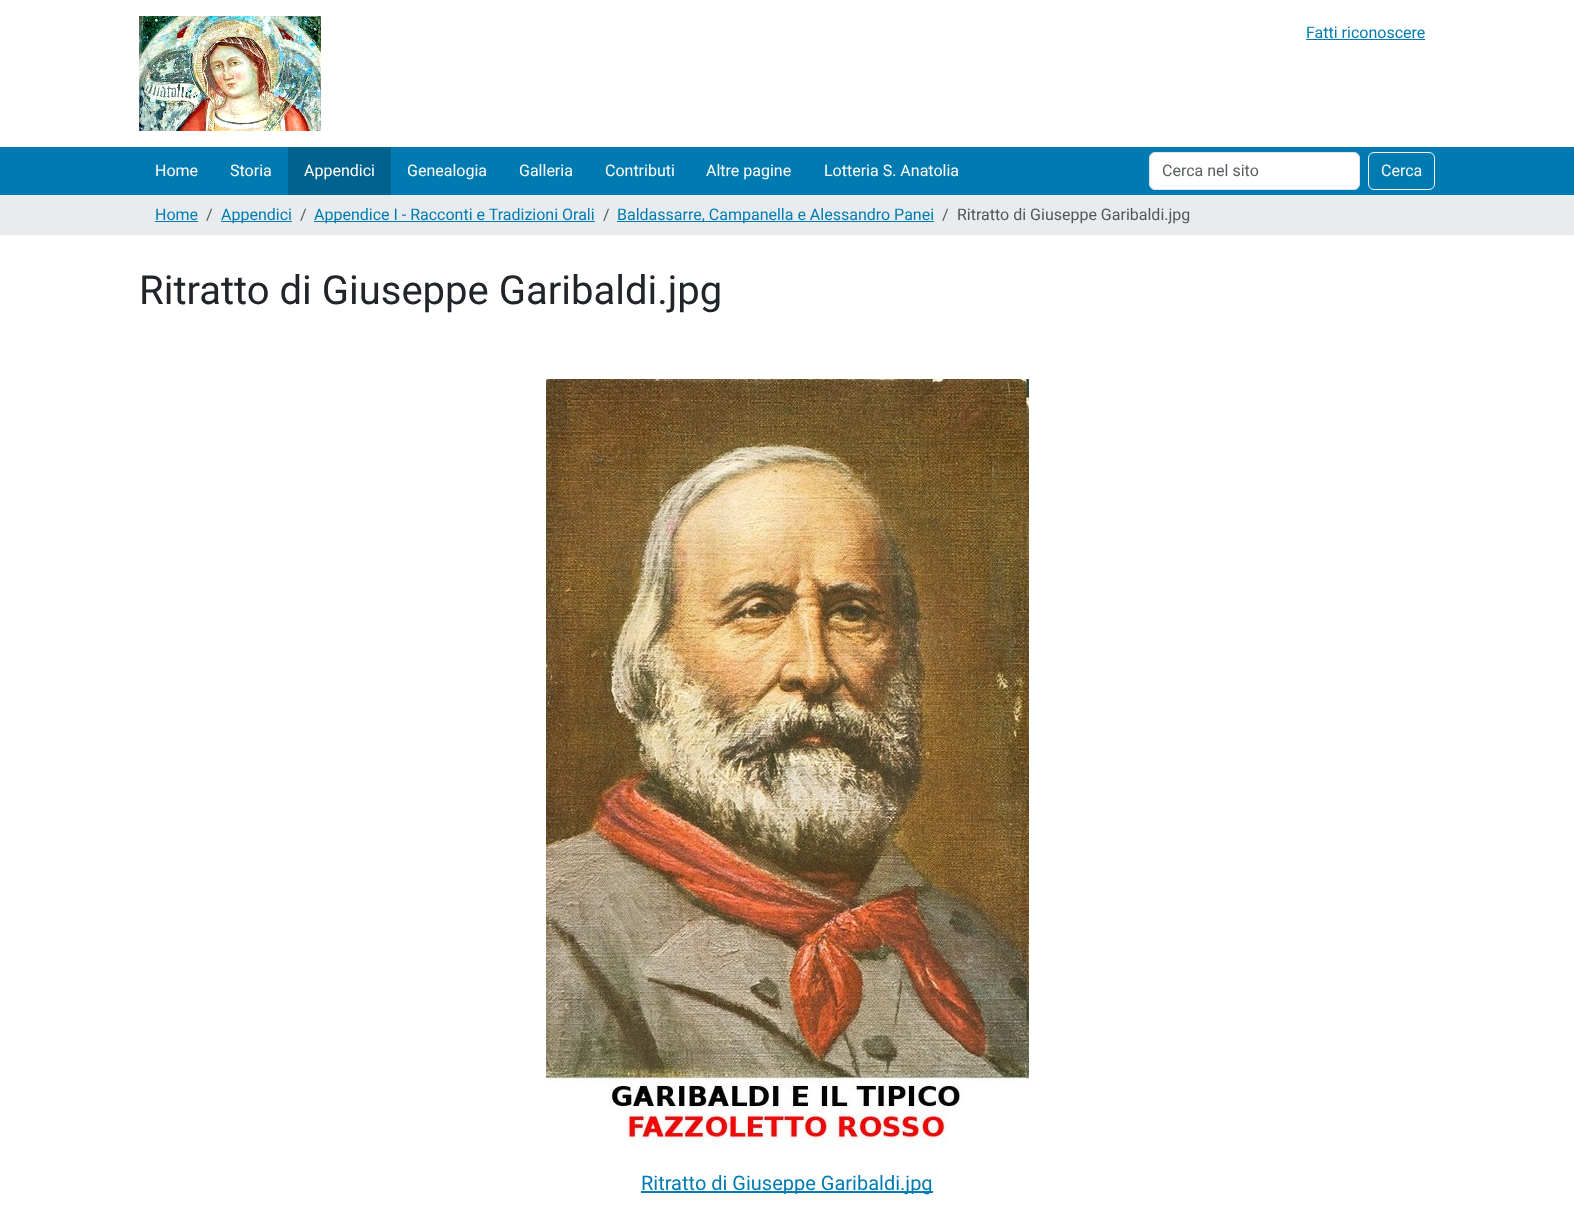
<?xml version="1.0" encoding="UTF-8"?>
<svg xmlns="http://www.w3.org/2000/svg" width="1574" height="1207">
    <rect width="100%" height="100%" fill="#FFFFFF"/>
    <image x="139" y="16" width="182" height="115" href="img_01.png"/>
    <text x="1306" y="38" font-family="Roboto" font-size="16" fill="#007BB1">Fatti riconoscere</text>
    <rect x="1306" y="39" width="119" height="1" fill="#007BB1"/>
    <rect x="0" y="147" width="1574" height="48" fill="#007BB1"/>
    <text x="155" y="176" font-family="Roboto" font-size="16" fill="#FFFFFF">Home</text>
    <text x="230" y="176" font-family="Roboto" font-size="16" fill="#FFFFFF">Storia</text>
    <rect x="288" y="147" width="103" height="48" fill="#00628E"/>
    <text x="304" y="176" font-family="Roboto" font-size="16" fill="#FFFFFF">Appendici</text>
    <text x="407" y="176" font-family="Roboto" font-size="16" fill="#FFFFFF">Genealogia</text>
    <text x="519" y="176" font-family="Roboto" font-size="16" fill="#FFFFFF">Galleria</text>
    <text x="605" y="176" font-family="Roboto" font-size="16" fill="#FFFFFF">Contributi</text>
    <text x="706" y="176" font-family="Roboto" font-size="16" fill="#FFFFFF">Altre pagine</text>
    <text x="824" y="176" font-family="Roboto" font-size="16" fill="#FFFFFF">Lotteria S. Anatolia</text>
    <rect x="1149.5" y="152.5" width="210" height="37" rx="5.5" fill="#FFFFFF" stroke="#DEE2E6"/>
    <text x="1162" y="176" font-family="Roboto" font-size="16" fill="#595C5F">Cerca nel sito</text>
    <rect x="1368.5" y="152.5" width="66" height="37" rx="5.5" fill="none" stroke="#F8F9FA"/>
    <text x="1381" y="176" font-family="Roboto" font-size="16" fill="#F8F9FA">Cerca</text>
    <rect x="0" y="195" width="1574" height="40" fill="#E9ECEF"/>
    <text x="155" y="220" font-family="Roboto" font-size="16" fill="#007BB1">Home</text>
    <rect x="155" y="221" width="43" height="1" fill="#007BB1"/>
    <text x="206" y="220" font-family="Roboto" font-size="16" fill="#53575B">/</text>
    <rect x="221" y="221" width="71" height="1" fill="#007BB1"/>
    <text x="221" y="220" font-family="Roboto" font-size="16" fill="#007BB1">Appendici</text>
    <text x="300" y="220" font-family="Roboto" font-size="16" fill="#53575B">/</text>
    <rect x="314" y="221" width="281" height="1" fill="#007BB1"/>
    <text x="314" y="220" font-family="Roboto" font-size="16" fill="#007BB1">Appendice I - Racconti e Tradizioni Orali</text>
    <text x="603" y="220" font-family="Roboto" font-size="16" fill="#53575B">/</text>
    <rect x="617" y="221" width="317" height="1" fill="#007BB1"/>
    <text x="617" y="220" font-family="Roboto" font-size="16" fill="#007BB1">Baldassarre, Campanella e Alessandro Panei</text>
    <text x="942" y="220" font-family="Roboto" font-size="16" fill="#53575B">/</text>
    <text x="957" y="220" font-family="Roboto" font-size="16" fill="#53575B">Ritratto di Giuseppe Garibaldi.jpg</text>
    <text x="139" y="304" font-family="Roboto" font-size="40" fill="#212529">Ritratto di Giuseppe Garibaldi.jpg</text>
    <image x="546" y="379" width="483" height="768" href="img_02.png"/>
    <rect x="641" y="1191" width="292" height="2" fill="#007BB1"/>
    <text x="641" y="1190" font-family="Roboto" font-size="20" fill="#007BB1">Ritratto di Giuseppe Garibaldi.jpg</text>
</svg>
